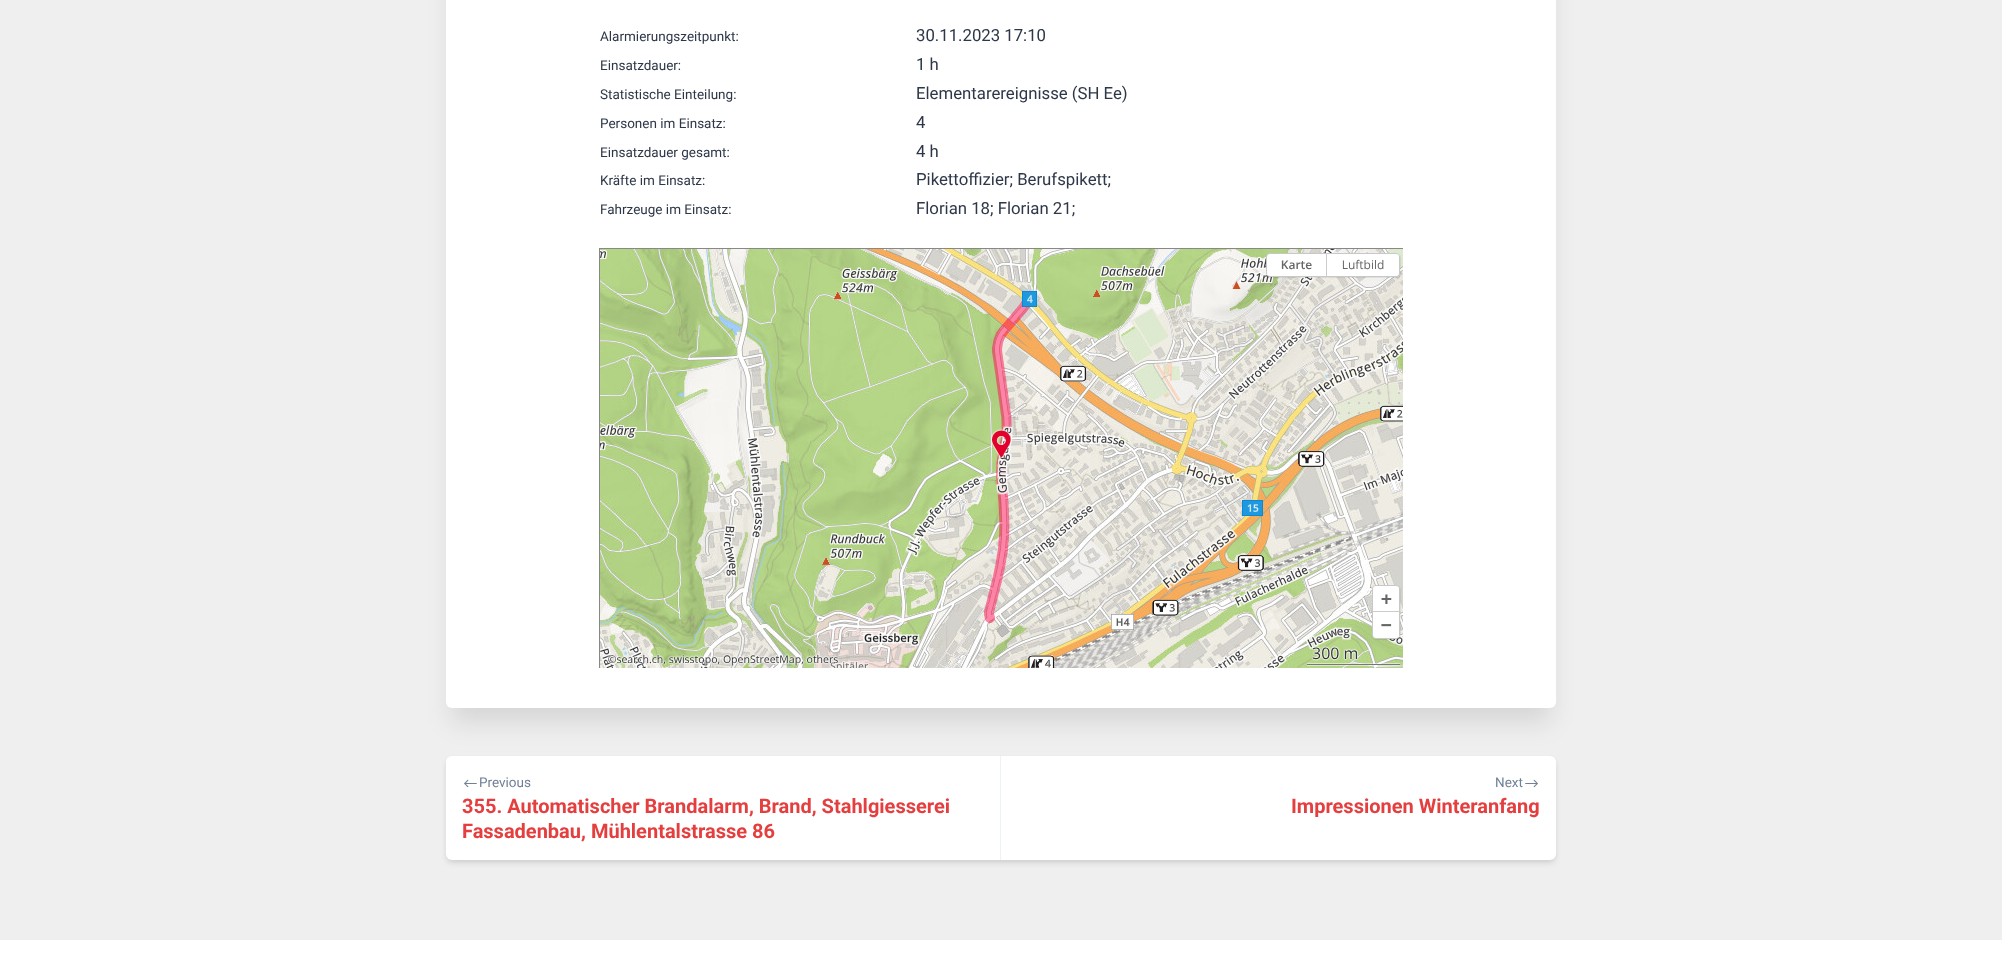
<?xml version="1.0" encoding="UTF-8"?>
<svg xmlns="http://www.w3.org/2000/svg" width="2002" height="976">
    <defs>
        <filter id="blur1" x="-50%" y="-200%" width="200%" height="500%"><feGaussianBlur stdDeviation="12.5"/></filter>
        <filter id="blur2" x="-50%" y="-200%" width="200%" height="500%"><feGaussianBlur stdDeviation="2"/></filter>
        <filter id="blur3" x="-50%" y="-200%" width="200%" height="500%"><feGaussianBlur stdDeviation="3"/></filter>
    </defs>
    <rect width="100%" height="100%" fill="#EFEFEF"/>
    <rect x="451" y="-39" width="1100" height="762" rx="1" fill="#000000" fill-opacity="0.1" filter="url(#blur1)"/>
    <rect x="446" y="-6" width="1110" height="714" rx="6" fill="#FFFFFF"/>
    <text x="600" y="41" font-family="Roboto" font-size="13.5" fill="#2D3748">Alarmierungszeitpunkt:</text>
    <text x="916" y="41" font-family="Roboto" font-size="16.75" fill="#2D3748">30.11.2023 17:10</text>
    <text x="600" y="70" font-family="Roboto" font-size="13.5" fill="#2D3748">Einsatzdauer:</text>
    <text x="916" y="70" font-family="Roboto" font-size="16.75" fill="#2D3748">1 h</text>
    <text x="600" y="99" font-family="Roboto" font-size="13.5" fill="#2D3748">Statistische Einteilung:</text>
    <text x="916" y="99" font-family="Roboto" font-size="16.75" fill="#2D3748">Elementarereignisse (SH Ee)</text>
    <text x="600" y="128" font-family="Roboto" font-size="13.5" fill="#2D3748">Personen im Einsatz:</text>
    <text x="916" y="128" font-family="Roboto" font-size="16.75" fill="#2D3748">4</text>
    <text x="600" y="157" font-family="Roboto" font-size="13.5" fill="#2D3748">Einsatzdauer gesamt:</text>
    <text x="916" y="157" font-family="Roboto" font-size="16.75" fill="#2D3748">4 h</text>
    <text x="600" y="185" font-family="Roboto" font-size="13.5" fill="#2D3748">Kräfte im Einsatz:</text>
    <text x="916" y="185" font-family="Roboto" font-size="16.75" fill="#2D3748">Pikettoffizier; Berufspikett;</text>
    <text x="600" y="214" font-family="Roboto" font-size="13.5" fill="#2D3748">Fahrzeuge im Einsatz:</text>
    <text x="916" y="214" font-family="Roboto" font-size="16.75" fill="#2D3748">Florian 18; Florian 21;</text>
    <image x="599" y="248" width="804" height="420" href="img_01.png"/>
    <rect x="447" y="759" width="1108" height="102" rx="5" fill="#000000" fill-opacity="0.06" filter="url(#blur2)"/>
    <rect x="447" y="761" width="1108" height="102" rx="5" fill="#000000" fill-opacity="0.1" filter="url(#blur3)"/>
    <rect x="446" y="756" width="1110" height="104" rx="6" fill="#FFFFFF"/>
    <rect x="1000" y="756" width="1" height="104" fill="#EDF2F7"/>
    <image x="464" y="779" width="13" height="9" href="img_02.png"/>
    <text x="479" y="787" font-family="Roboto" font-size="13.5" fill="#718096">Previous</text>
    <text font-family="Roboto" font-size="20" font-weight="700" fill="#E53E3E">
        <tspan x="462" y="813">355. Automatischer Brandalarm, Brand, Stahlgiesserei</tspan>
        <tspan x="462" y="838">Fassadenbau, Mühlentalstrasse 86</tspan>
    </text>
    <text x="1495" y="787" font-family="Roboto" font-size="13.5" fill="#718096">Next</text>
    <image x="1525" y="779" width="13" height="9" href="img_03.png"/>
    <text x="1291" y="813" font-family="Roboto" font-size="20" font-weight="700" fill="#E53E3E">Impressionen Winteranfang</text>
    <rect x="0" y="940" width="2002" height="36" fill="#FFFFFF"/>
</svg>
